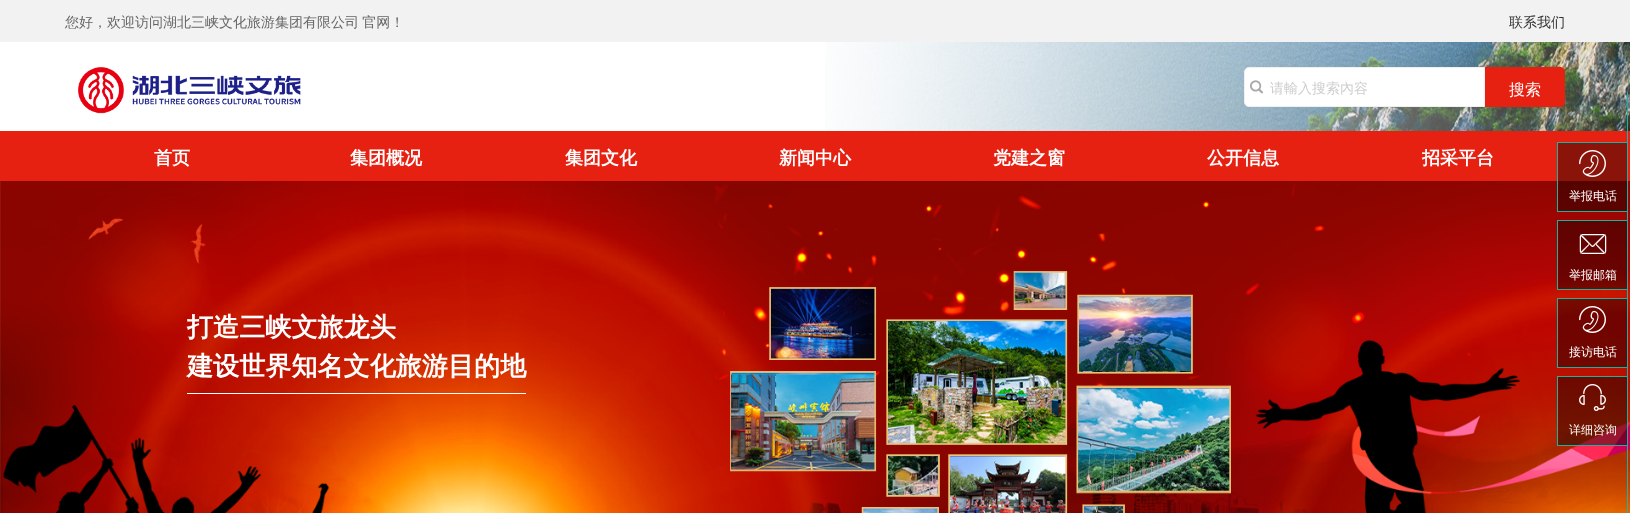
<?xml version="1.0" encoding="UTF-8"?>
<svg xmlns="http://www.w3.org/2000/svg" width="1630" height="513">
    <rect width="100%" height="100%" fill="#FFFFFF"/>
    <rect x="0" y="0" width="1630" height="42" fill="#F2F2F2"/>
    <text x="65" y="27" word-spacing="-1" font-family="WenQuanYi Zen Hei" font-size="14" font-weight="500" fill="#666666">您好，欢迎访问湖北三峡文化旅游集团有限公司 官网！</text>
    <text x="1509" y="27" font-family="WenQuanYi Zen Hei" font-size="14" font-weight="500" fill="#333333">联系我们</text>
    <image x="825" y="42" width="805" height="89" href="img_01.png"/>
    <image x="78" y="67" width="223" height="47" href="img_02.png"/>
    <path d="M 1249 67.5 H 1484.5 V 106.5 H 1249 C 1246.5 106.5 1244.5 104.5 1244.5 102 V 72 C 1244.5 69.5 1246.5 67.5 1249 67.5 Z" fill="#FFFFFF" stroke="#F0F0F0"/>
    <image x="1250" y="80" width="13" height="14" href="img_03.png"/>
    <text x="1270" y="93" font-family="WenQuanYi Zen Hei" font-size="14" font-weight="500" fill="#CECECE">请輸入搜索內容</text>
    <path d="M 1485 67 H 1560 C 1563 67 1565 69 1565 72 V 102 C 1565 105 1563 107 1560 107 H 1485 Z" fill="#E62112"/>
    <text x="1509" y="95" font-family="WenQuanYi Zen Hei" font-size="16" font-weight="500" fill="#FFFFFF">搜索</text>
    <rect x="0" y="131" width="1630" height="50" fill="#E62112"/>
    <text x="154" y="164" font-family="WenQuanYi Zen Hei" font-size="18" font-weight="700" fill="#FFFFFF">首页</text>
    <text x="350" y="164" font-family="WenQuanYi Zen Hei" font-size="18" font-weight="700" fill="#FFFFFF">集团概况</text>
    <text x="565" y="164" font-family="WenQuanYi Zen Hei" font-size="18" font-weight="700" fill="#FFFFFF">集团文化</text>
    <text x="779" y="164" font-family="WenQuanYi Zen Hei" font-size="18" font-weight="700" fill="#FFFFFF">新闻中心</text>
    <text x="993" y="164" font-family="WenQuanYi Zen Hei" font-size="18" font-weight="700" fill="#FFFFFF">党建之窗</text>
    <text x="1207" y="164" font-family="WenQuanYi Zen Hei" font-size="18" font-weight="700" fill="#FFFFFF">公开信息</text>
    <text x="1422" y="164" font-family="WenQuanYi Zen Hei" font-size="18" font-weight="700" fill="#FFFFFF">招采平台</text>
    <image x="0" y="181" width="1630" height="332" href="img_04.png"/>
    <text font-family="WenQuanYi Zen Hei" font-size="26.1" font-weight="700" fill="#FFFFFF">
        <tspan x="187" y="336">打造三峡文旅龙头</tspan>
        <tspan x="187" y="375">建设世界知名文化旅游目的地</tspan>
    </text>
    <rect x="187" y="393" width="339" height="1" fill="#FFFFFF"/>
    <rect x="1627" y="92" width="1" height="421" fill="#20B09F"/>
    <rect x="1558" y="143" width="69" height="68" fill="#000000" fill-opacity="0.4"/>
    <rect x="1557" y="142" width="70" height="1" fill="#20B09F"/>
    <rect x="1557" y="211" width="70" height="1" fill="#20B09F"/>
    <rect x="1557" y="142" width="1" height="70" fill="#20B09F"/>
    <image x="1579" y="150" width="27" height="27" href="img_05.png"/>
    <text x="1569" y="200" font-family="WenQuanYi Zen Hei" font-size="12" font-weight="500" fill="#FFFFFF">举报电话</text>
    <rect x="1558" y="221" width="69" height="68" fill="#000000" fill-opacity="0.4"/>
    <rect x="1557" y="220" width="70" height="1" fill="#20B09F"/>
    <rect x="1557" y="289" width="70" height="1" fill="#20B09F"/>
    <rect x="1557" y="220" width="1" height="70" fill="#20B09F"/>
    <image x="1579" y="234" width="28" height="20" href="img_06.png"/>
    <text x="1569" y="279" font-family="WenQuanYi Zen Hei" font-size="12" font-weight="500" fill="#FFFFFF">举报邮箱</text>
    <rect x="1558" y="299" width="69" height="68" fill="#000000" fill-opacity="0.4"/>
    <rect x="1557" y="298" width="70" height="1" fill="#20B09F"/>
    <rect x="1557" y="367" width="70" height="1" fill="#20B09F"/>
    <rect x="1557" y="298" width="1" height="70" fill="#20B09F"/>
    <image x="1579" y="306" width="27" height="27" href="img_07.png"/>
    <text x="1569" y="356" font-family="WenQuanYi Zen Hei" font-size="12" font-weight="500" fill="#FFFFFF">接访电话</text>
    <rect x="1558" y="377" width="69" height="68" fill="#000000" fill-opacity="0.4"/>
    <rect x="1557" y="376" width="70" height="1" fill="#20B09F"/>
    <rect x="1557" y="445" width="70" height="1" fill="#20B09F"/>
    <rect x="1557" y="376" width="1" height="70" fill="#20B09F"/>
    <image x="1579" y="384" width="27" height="27" href="img_08.png"/>
    <text x="1569" y="434" font-family="WenQuanYi Zen Hei" font-size="12" font-weight="500" fill="#FFFFFF">详细咨询</text>
</svg>
